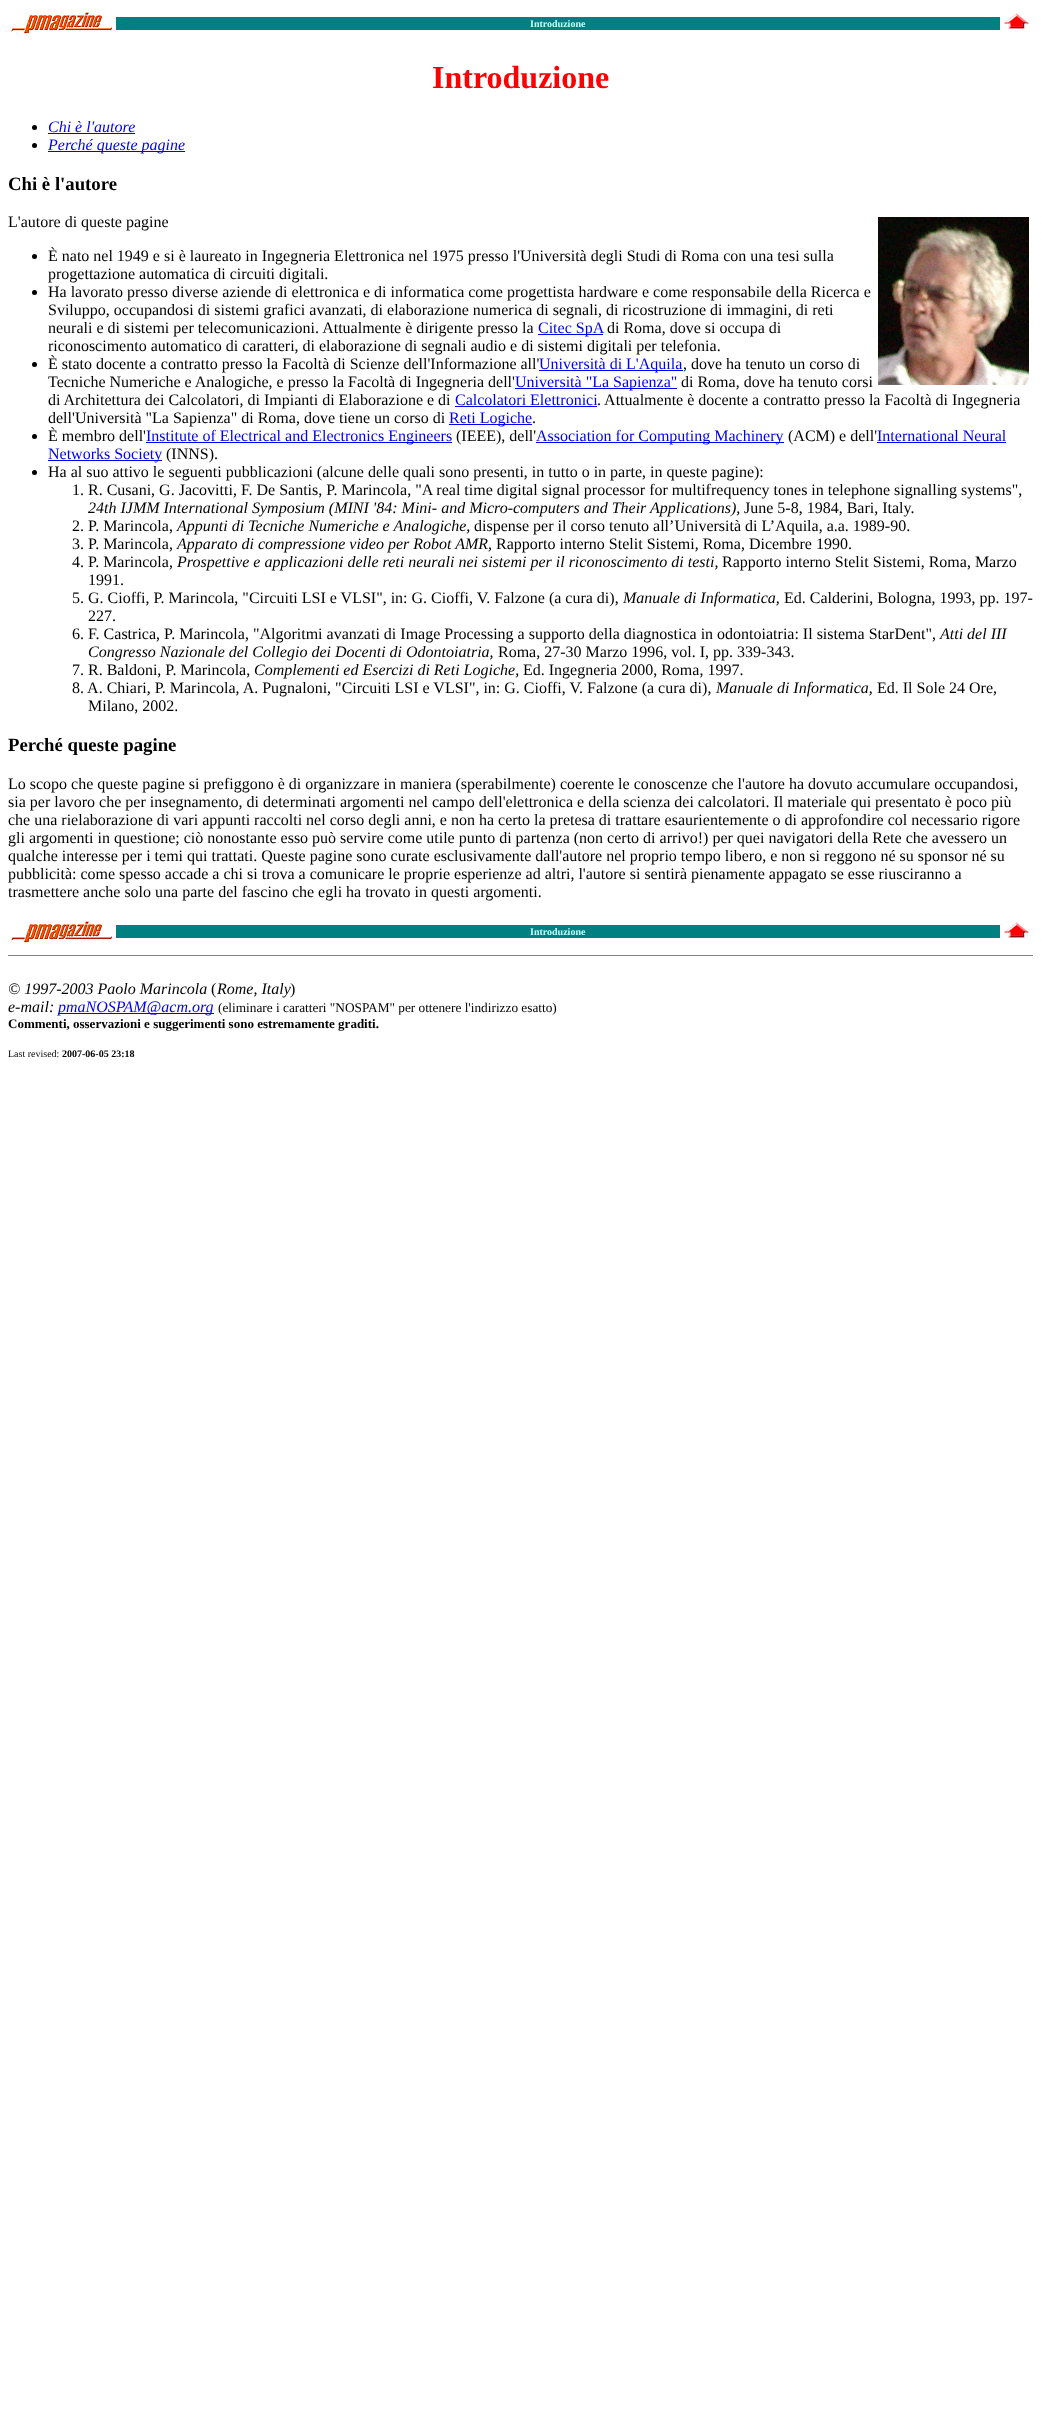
<?xml version="1.0" encoding="UTF-8"?>
<svg xmlns="http://www.w3.org/2000/svg" width="1041" height="2421">
    <rect width="100%" height="100%" fill="#FFFFFF"/>
    <image x="11" y="12" width="102" height="22" href="img_01.png"/>
    <rect x="116" y="17" width="884" height="13" fill="#008080"/>
    <text x="530" y="27" font-family="Liberation Serif" font-size="10" font-weight="700" fill="#C6FFFF">Introduzione</text>
    <image x="1004" y="13" width="25" height="16" href="img_02.png"/>
    <text x="432" y="88" font-family="Liberation Serif" font-size="32" font-weight="700" fill="#FF0000">Introduzione</text>
    <circle cx="34.5" cy="127.5" r="2.5" fill="#000000"/>
    <text x="48" y="132" font-family="Liberation Serif" font-size="16" font-style="italic" fill="#0000EE">Chi è l'autore</text>
    <rect x="48" y="133" width="87" height="1" fill="#0000EE"/>
    <circle cx="34.5" cy="145.5" r="2.5" fill="#000000"/>
    <rect x="48" y="151" width="137" height="1" fill="#0000EE"/>
    <text x="48" y="150" font-family="Liberation Serif" font-size="16" font-style="italic" fill="#0000EE">Perché queste pagine</text>
    <text x="8" y="190" font-family="Liberation Serif" font-size="18.75" font-weight="700" fill="#000000">Chi è l'autore</text>
    <text x="8" y="227" font-family="Liberation Serif" font-size="16" fill="#000000">L'autore di queste pagine</text>
    <image x="878" y="217" width="151" height="168" href="img_03.png"/>
    <circle cx="34.5" cy="256.5" r="2.5" fill="#000000"/>
    <text font-family="Liberation Serif" font-size="16" fill="#000000">
        <tspan x="48" y="261">È nato nel 1949 e si è laureato in Ingegneria Elettronica nel 1975 presso l'Università degli Studi di Roma con una tesi sulla</tspan>
        <tspan x="48" y="279">progettazione automatica di circuiti digitali.</tspan>
    </text>
    <circle cx="34.5" cy="292.5" r="2.5" fill="#000000"/>
    <text font-family="Liberation Serif" font-size="16" fill="#000000">
        <tspan x="48" y="297">Ha lavorato presso diverse aziende di elettronica e di informatica come progettista hardware e come responsabile della Ricerca e</tspan>
        <tspan x="48" y="315">Sviluppo, occupandosi di sistemi grafici avanzati, di elaborazione numerica di segnali, di ricostruzione di immagini, di reti</tspan>
        <tspan x="48" y="333">neurali e di sistemi per telecomunicazioni. Attualmente è dirigente presso la</tspan>
    </text>
    <rect x="538" y="334" width="65" height="1" fill="#0000EE"/>
    <text x="538" y="333" font-family="Liberation Serif" font-size="16" fill="#0000EE">Citec SpA</text>
    <text x="607" y="333" font-family="Liberation Serif" font-size="16" fill="#000000">di Roma, dove si occupa di</text>
    <text x="48" y="351" font-family="Liberation Serif" font-size="16" fill="#000000">riconoscimento automatico di caratteri, di elaborazione di segnali audio e di sistemi digitali per telefonia.</text>
    <circle cx="34.5" cy="364.5" r="2.5" fill="#000000"/>
    <text x="48" y="369" font-family="Liberation Serif" font-size="16" fill="#000000">È stato docente a contratto presso la Facoltà di Scienze dell'Informazione all'</text>
    <rect x="539" y="370" width="144" height="1" fill="#0000EE"/>
    <text x="539" y="369" font-family="Liberation Serif" font-size="16" fill="#0000EE">Università di L'Aquila</text>
    <text x="683" y="369" font-family="Liberation Serif" font-size="16" fill="#000000">, dove ha tenuto un corso di</text>
    <text x="48" y="387" font-family="Liberation Serif" font-size="16" fill="#000000">Tecniche Numeriche e Analogiche, e presso la Facoltà di Ingegneria dell'</text>
    <rect x="515" y="388" width="162" height="1" fill="#0000EE"/>
    <text x="515" y="387" font-family="Liberation Serif" font-size="16" fill="#0000EE">Università "La Sapienza"</text>
    <text x="681" y="387" font-family="Liberation Serif" font-size="16" fill="#000000">di Roma, dove ha tenuto corsi</text>
    <text x="48" y="405" font-family="Liberation Serif" font-size="16" fill="#000000">di Architettura dei Calcolatori, di Impianti di Elaborazione e di</text>
    <text x="455" y="405" font-family="Liberation Serif" font-size="16" fill="#0000EE">Calcolatori Elettronici</text>
    <rect x="455" y="406" width="142" height="1" fill="#0000EE"/>
    <text x="597" y="405" font-family="Liberation Serif" font-size="16" fill="#000000">. Attualmente è docente a contratto presso la Facoltà di Ingegneria</text>
    <text x="48" y="423" font-family="Liberation Serif" font-size="16" fill="#000000">dell'Università "La Sapienza" di Roma, dove tiene un corso di</text>
    <rect x="449" y="424" width="83" height="1" fill="#0000EE"/>
    <text x="449" y="423" font-family="Liberation Serif" font-size="16" fill="#0000EE">Reti Logiche</text>
    <text x="532" y="423" font-family="Liberation Serif" font-size="16" fill="#000000">.</text>
    <circle cx="34.5" cy="436.5" r="2.5" fill="#000000"/>
    <text x="48" y="441" font-family="Liberation Serif" font-size="16" fill="#000000">È membro dell'</text>
    <rect x="146" y="442" width="306" height="1" fill="#0000EE"/>
    <text x="146" y="441" font-family="Liberation Serif" font-size="16" fill="#0000EE">Institute of Electrical and Electronics Engineers</text>
    <text x="456" y="441" font-family="Liberation Serif" font-size="16" fill="#000000">(IEEE), dell'</text>
    <rect x="536" y="442" width="248" height="1" fill="#0000EE"/>
    <text x="536" y="441" font-family="Liberation Serif" font-size="16" fill="#0000EE">Association for Computing Machinery</text>
    <text x="788" y="441" font-family="Liberation Serif" font-size="16" fill="#000000">(ACM) e dell'</text>
    <text x="877" y="441" font-family="Liberation Serif" font-size="16" fill="#0000EE">International Neural</text>
    <rect x="877" y="442" width="129" height="1" fill="#0000EE"/>
    <rect x="48" y="460" width="114" height="1" fill="#0000EE"/>
    <text x="48" y="459" font-family="Liberation Serif" font-size="16" fill="#0000EE">Networks Society</text>
    <text x="166" y="459" font-family="Liberation Serif" font-size="16" fill="#000000">(INNS).</text>
    <circle cx="34.5" cy="472.5" r="2.5" fill="#000000"/>
    <text x="48" y="477" font-family="Liberation Serif" font-size="16" fill="#000000">Ha al suo attivo le seguenti pubblicazioni (alcune delle quali sono presenti, in tutto o in parte, in queste pagine):</text>
    <text x="72" y="495" font-family="Liberation Serif" font-size="16" fill="#000000">1. R. Cusani, G. Jacovitti, F. De Santis, P. Marincola, "A real time digital signal processor for multifrequency tones in telephone signalling systems",</text>
    <text x="88" y="513" font-family="Liberation Serif" font-size="16" font-style="italic" fill="#000000">24th IJMM International Symposium (MINI '84: Mini- and Micro-computers and Their Applications),</text>
    <text x="744" y="513" font-family="Liberation Serif" font-size="16" fill="#000000">June 5-8, 1984, Bari, Italy.</text>
    <text x="72" y="531" font-family="Liberation Serif" font-size="16" fill="#000000">2. P. Marincola,</text>
    <text x="177" y="531" font-family="Liberation Serif" font-size="16" font-style="italic" fill="#000000">Appunti di Tecniche Numeriche e Analogiche,</text>
    <text x="474" y="531" font-family="Liberation Serif" font-size="16" fill="#000000">dispense per il corso tenuto all’Università di L’Aquila, a.a. 1989-90.</text>
    <text x="72" y="549" font-family="Liberation Serif" font-size="16" fill="#000000">3. P. Marincola,</text>
    <text x="177" y="549" font-family="Liberation Serif" font-size="16" font-style="italic" fill="#000000">Apparato di compressione video per Robot AMR,</text>
    <text x="496" y="549" font-family="Liberation Serif" font-size="16" fill="#000000">Rapporto interno Stelit Sistemi, Roma, Dicembre 1990.</text>
    <text x="72" y="567" font-family="Liberation Serif" font-size="16" fill="#000000">4. P. Marincola,</text>
    <text x="177" y="567" font-family="Liberation Serif" font-size="16" font-style="italic" fill="#000000">Prospettive e applicazioni delle reti neurali nei sistemi per il riconoscimento di testi,</text>
    <text x="722" y="567" font-family="Liberation Serif" font-size="16" fill="#000000">Rapporto interno Stelit Sistemi, Roma, Marzo</text>
    <text x="88" y="585" font-family="Liberation Serif" font-size="16" fill="#000000">1991.</text>
    <text x="72" y="603" font-family="Liberation Serif" font-size="16" fill="#000000">5. G. Cioffi, P. Marincola, "Circuiti LSI e VLSI", in: G. Cioffi, V. Falzone (a cura di),</text>
    <text x="623" y="603" font-family="Liberation Serif" font-size="16" font-style="italic" fill="#000000">Manuale di Informatica,</text>
    <text x="784" y="603" font-family="Liberation Serif" font-size="16" fill="#000000">Ed. Calderini, Bologna, 1993, pp. 197-</text>
    <text x="88" y="621" font-family="Liberation Serif" font-size="16" fill="#000000">227.</text>
    <text x="72" y="639" font-family="Liberation Serif" font-size="16" fill="#000000">6. F. Castrica, P. Marincola, "Algoritmi avanzati di Image Processing a supporto della diagnostica in odontoiatria: Il sistema StarDent",</text>
    <text x="940" y="639" font-family="Liberation Serif" font-size="16" font-style="italic" fill="#000000">Atti del III</text>
    <text x="88" y="657" font-family="Liberation Serif" font-size="16" font-style="italic" fill="#000000">Congresso Nazionale del Collegio dei Docenti di Odontoiatria,</text>
    <text x="498" y="657" font-family="Liberation Serif" font-size="16" fill="#000000">Roma, 27-30 Marzo 1996, vol. I, pp. 339-343.</text>
    <text x="72" y="675" font-family="Liberation Serif" font-size="16" fill="#000000">7. R. Baldoni, P. Marincola,</text>
    <text x="254" y="675" font-family="Liberation Serif" font-size="16" font-style="italic" fill="#000000">Complementi ed Esercizi di Reti Logiche,</text>
    <text x="523" y="675" font-family="Liberation Serif" font-size="16" fill="#000000">Ed. Ingegneria 2000, Roma, 1997.</text>
    <text x="72" y="693" font-family="Liberation Serif" font-size="16" fill="#000000">8. A. Chiari, P. Marincola, A. Pugnaloni, "Circuiti LSI e VLSI", in: G. Cioffi, V. Falzone (a cura di),</text>
    <text x="716" y="693" font-family="Liberation Serif" font-size="16" font-style="italic" fill="#000000">Manuale di Informatica,</text>
    <text x="877" y="693" font-family="Liberation Serif" font-size="16" fill="#000000">Ed. Il Sole 24 Ore,</text>
    <text x="88" y="711" font-family="Liberation Serif" font-size="16" fill="#000000">Milano, 2002.</text>
    <text x="8" y="751" font-family="Liberation Serif" font-size="18.75" font-weight="700" fill="#000000">Perché queste pagine</text>
    <text font-family="Liberation Serif" font-size="16" fill="#000000">
        <tspan x="8" y="789">Lo scopo che queste pagine si prefiggono è di organizzare in maniera (sperabilmente) coerente le conoscenze che l'autore ha dovuto accumulare occupandosi,</tspan>
        <tspan x="8" y="807">sia per lavoro che per insegnamento, di determinati argomenti nel campo dell'elettronica e della scienza dei calcolatori. Il materiale qui presentato è poco più</tspan>
        <tspan x="8" y="825">che una rielaborazione di vari appunti raccolti nel corso degli anni, e non ha certo la pretesa di trattare esaurientemente o di approfondire col necessario rigore</tspan>
        <tspan x="8" y="843">gli argomenti in questione; ciò nonostante esso può servire come utile punto di partenza (non certo di arrivo!) per quei navigatori della Rete che avessero un</tspan>
        <tspan x="8" y="861">qualche interesse per i temi qui trattati. Queste pagine sono curate esclusivamente dall'autore nel proprio tempo libero, e non si reggono né su sponsor né su</tspan>
        <tspan x="8" y="879">pubblicità: come spesso accade a chi si trova a comunicare le proprie esperienze ad altri, l'autore si sentirà pienamente appagato se esse riusciranno a</tspan>
        <tspan x="8" y="897">trasmettere anche solo una parte del fascino che egli ha trovato in questi argomenti.</tspan>
    </text>
    <image x="11" y="921" width="102" height="22" href="img_01.png"/>
    <rect x="116" y="925" width="884" height="13" fill="#008080"/>
    <text x="530" y="935" font-family="Liberation Serif" font-size="10" font-weight="700" fill="#C6FFFF">Introduzione</text>
    <image x="1004" y="922" width="25" height="16" href="img_02.png"/>
    <rect x="8" y="955" width="1025" height="1" fill="#808080"/>
    <text x="8" y="994" font-family="Liberation Serif" font-size="16" font-style="italic" fill="#000000">© 1997-2003 Paolo Marincola</text>
    <text x="211" y="994" font-family="Liberation Serif" font-size="16" fill="#000000">(</text>
    <text x="217" y="994" font-family="Liberation Serif" font-size="16" font-style="italic" fill="#000000">Rome, Italy</text>
    <text x="290" y="994" font-family="Liberation Serif" font-size="16" fill="#000000">)</text>
    <text x="8" y="1012" font-family="Liberation Serif" font-size="16" font-style="italic" fill="#000000">e-mail:</text>
    <rect x="58" y="1013" width="156" height="1" fill="#0000EE"/>
    <text x="58" y="1012" font-family="Liberation Serif" font-size="16" font-style="italic" fill="#0000EE">pmaNOSPAM@acm.org</text>
    <text x="218" y="1012" font-family="Liberation Serif" font-size="13.3" fill="#000000">(eliminare i caratteri "NOSPAM" per ottenere l'indirizzo esatto)</text>
    <text x="8" y="1028" font-family="Liberation Serif" font-size="13" font-weight="700" fill="#000000">Commenti, osservazioni e suggerimenti sono estremamente graditi.</text>
    <text x="8" y="1057" font-family="Liberation Serif" font-size="10" fill="#000000">Last revised:</text>
    <text x="62" y="1057" font-family="Liberation Serif" font-size="10" font-weight="700" fill="#000000">2007-06-05 23:18</text>
</svg>
